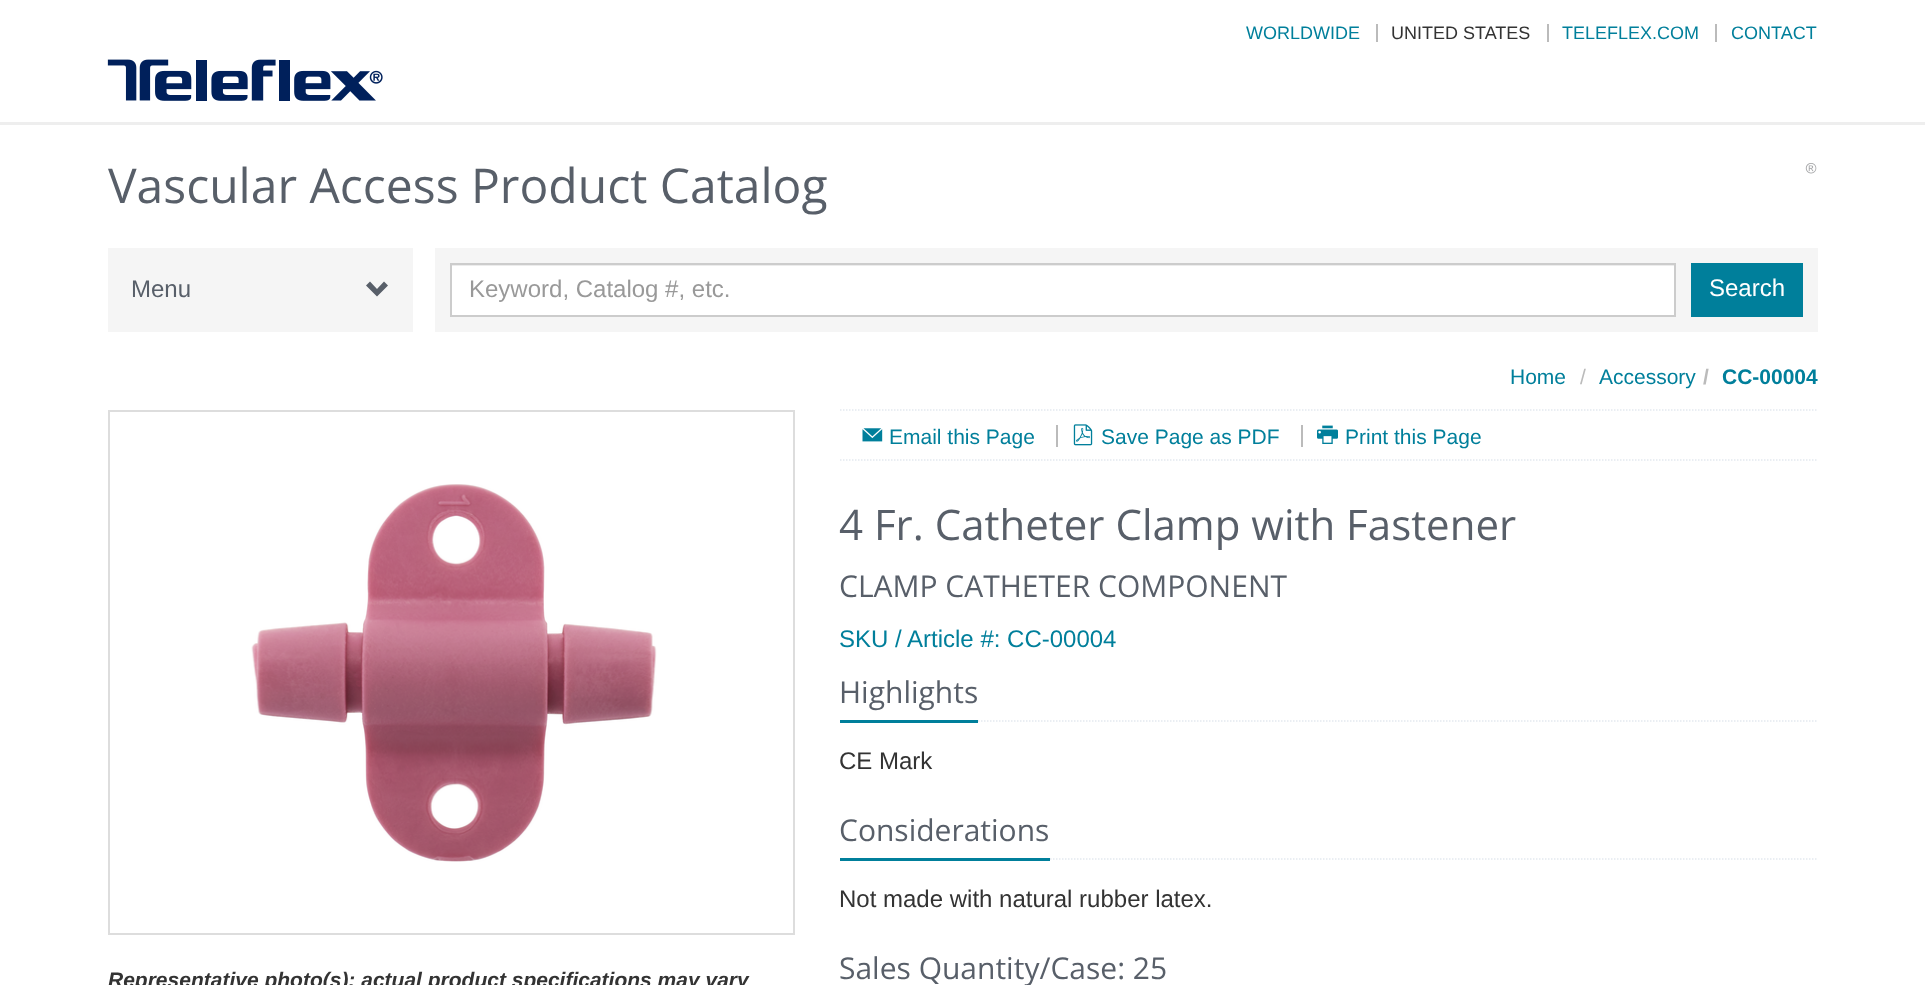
<?xml version="1.0" encoding="UTF-8"?>
<svg xmlns="http://www.w3.org/2000/svg" width="1925" height="985">
    <rect width="100%" height="100%" fill="#FFFFFF"/>
    <rect x="0" y="122" width="1925" height="3" fill="#EEEEEE"/>
    <text x="1246" y="39" font-family="Liberation Sans" font-size="18" fill="#007F9B">WORLDWIDE</text>
    <rect x="1376" y="24" width="2" height="18" fill="#BBBBBB"/>
    <text x="1391" y="39" font-family="Liberation Sans" font-size="18" fill="#333333">UNITED STATES</text>
    <rect x="1547" y="24" width="2" height="18" fill="#BBBBBB"/>
    <text x="1562" y="39" font-family="Liberation Sans" font-size="18" fill="#007F9B">TELEFLEX.COM</text>
    <rect x="1715" y="24" width="2" height="18" fill="#BBBBBB"/>
    <text x="1731" y="39" font-family="Liberation Sans" font-size="18" fill="#007F9B">CONTACT</text>
    <image x="107" y="59" width="276" height="42" href="img_01.png"/>
    <text x="108" y="203" font-family="Open Sans" font-size="48" fill="#585F69">Vascular Access Product Catalog</text>
    <image x="1805" y="163" width="12" height="11" href="img_02.png"/>
    <rect x="108" y="248" width="305" height="84" fill="#F5F5F5"/>
    <text x="131" y="297" font-family="Liberation Sans" font-size="24" fill="#585F69">Menu</text>
    <path d="M 388 285.5 L 377 296.5 L 366 285.5 L 370 281.5 L 377 289 L 384 281.5 Z" fill="#585F69"/>
    <rect x="435" y="248" width="1383" height="84" fill="#F5F5F5"/>
    <rect x="452" y="266" width="1222" height="49" fill="#FFFFFF"/>
    <rect x="452" y="265" width="1222" height="1" fill="#ECECEC"/>
    <rect x="451" y="264" width="1224" height="52" fill="none" stroke="#CCCCCC" stroke-width="2"/>
    <text x="469" y="297" font-family="Liberation Sans" font-size="24" fill="#999999">Keyword, Catalog #, etc.</text>
    <rect x="1691" y="263" width="112" height="54" fill="#007F9B"/>
    <text x="1709" y="296" font-family="Liberation Sans" font-size="24" fill="#FFFFFF">Search</text>
    <text x="1510" y="384" font-family="Liberation Sans" font-size="21" fill="#007F9B">Home</text>
    <text x="1580" y="384" font-family="Liberation Sans" font-size="21" fill="#BBBBBB">/</text>
    <text x="1599" y="384" font-family="Liberation Sans" font-size="21" fill="#007F9B">Accessory</text>
    <text x="1703" y="384" font-family="Liberation Sans" font-size="21" font-weight="700" fill="#BBBBBB">/</text>
    <text x="1722" y="384" font-family="Liberation Sans" font-size="21" font-weight="700" fill="#007F9B">CC-00004</text>
    <rect x="109" y="411" width="685" height="523" fill="none" stroke="#DDDDDD" stroke-width="2"/>
    <image x="251" y="484" width="406" height="378" href="img_03.png"/>
    <text x="108" y="987" font-family="Liberation Sans" font-size="21" font-weight="700" font-style="italic" fill="#333333">Representative photo(s): actual product specifications may vary</text>
    <path d="M 840 410 H 1818" fill="none" stroke="#E4E9F0" stroke-width="1.5" stroke-dasharray="1.5 1.5"/>
    <path d="M 840 460 H 1818" fill="none" stroke="#E4E9F0" stroke-width="1.5" stroke-dasharray="1.5 1.5"/>
    <image x="862" y="428" width="21" height="14" href="img_04.png"/>
    <text x="889" y="444" font-family="Liberation Sans" font-size="21" fill="#007F9B">Email this Page</text>
    <rect x="1056" y="425" width="2" height="22" fill="#BBBBBB"/>
    <image x="1073" y="424" width="20" height="22" href="img_05.png"/>
    <text x="1101" y="444" font-family="Liberation Sans" font-size="21" fill="#007F9B">Save Page as PDF</text>
    <rect x="1301" y="425" width="2" height="22" fill="#BBBBBB"/>
    <image x="1317" y="425" width="21" height="19" href="img_06.png"/>
    <text x="1345" y="444" font-family="Liberation Sans" font-size="21" fill="#007F9B">Print this Page</text>
    <text x="839" y="540" font-family="Open Sans" font-size="42" fill="#585F69">4 Fr. Catheter Clamp with Fastener</text>
    <text x="839" y="597" font-family="Open Sans" font-size="30" fill="#585F69">CLAMP CATHETER COMPONENT</text>
    <text x="839" y="647" font-family="Liberation Sans" font-size="24" fill="#007F9B">SKU / Article #: CC-00004</text>
    <path d="M 840 721 H 1818" fill="none" stroke="#E4E9F0" stroke-width="1.5" stroke-dasharray="1.5 1.5"/>
    <rect x="840" y="720" width="138" height="3" fill="#007F9B"/>
    <text x="839" y="703" font-family="Open Sans" font-size="30" fill="#585F69">Highlights</text>
    <text x="839" y="769" font-family="Liberation Sans" font-size="24" fill="#333333">CE Mark</text>
    <path d="M 840 859 H 1818" fill="none" stroke="#E4E9F0" stroke-width="1.5" stroke-dasharray="1.5 1.5"/>
    <rect x="840" y="858" width="210" height="3" fill="#007F9B"/>
    <text x="839" y="841" font-family="Open Sans" font-size="30" fill="#585F69">Considerations</text>
    <text x="839" y="907" font-family="Liberation Sans" font-size="24" fill="#333333">Not made with natural rubber latex.</text>
    <text x="839" y="979" font-family="Open Sans" font-size="30" fill="#585F69">Sales Quantity/Case: 25</text>
</svg>
